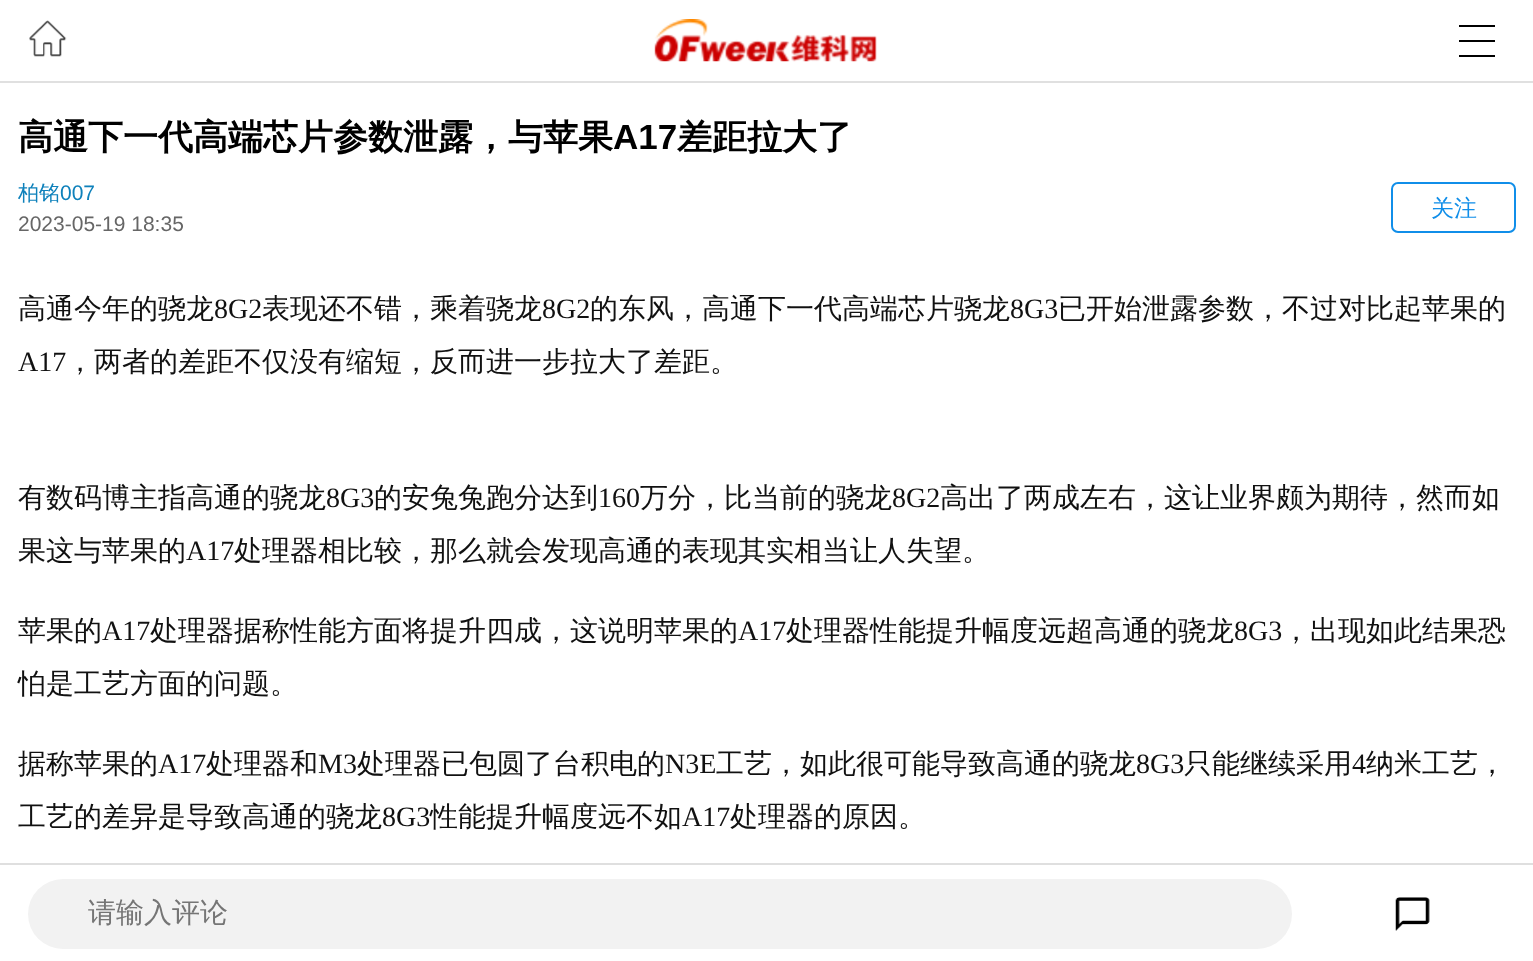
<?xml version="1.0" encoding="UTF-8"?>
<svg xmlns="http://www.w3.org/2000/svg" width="1533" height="961">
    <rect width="100%" height="100%" fill="#FFFFFF"/>
    <rect x="0" y="81" width="1533" height="2" fill="#E0E0E0"/>
    <image x="29" y="20" width="38" height="37" href="img_01.png"/>
    <image x="654" y="19" width="223" height="43" href="img_02.png"/>
    <rect x="1459" y="25" width="36" height="2" fill="#000000"/>
    <rect x="1459" y="40" width="36" height="2" fill="#000000"/>
    <rect x="1459" y="55" width="36" height="2" fill="#000000"/>
    <text x="18" y="149" font-family="WenQuanYi Zen Hei" font-size="35" font-weight="700" fill="#000000">高通下一代高端芯片参数泄露，与苹果</text>
    <text x="613" y="149" font-family="Liberation Sans" font-size="35" font-weight="700" fill="#000000">A17</text>
    <text x="677" y="149" font-family="WenQuanYi Zen Hei" font-size="35" font-weight="700" fill="#000000">差距拉大了</text>
    <text x="18" y="200" font-family="WenQuanYi Zen Hei" font-size="21" font-weight="500" fill="#0E81BB">柏铭</text>
    <text x="60" y="200" font-family="Liberation Sans" font-size="21" fill="#0E81BB">007</text>
    <text x="18" y="231" font-family="Liberation Sans" font-size="21" fill="#666666">2023-05-19 18:35</text>
    <rect x="1392" y="183" width="123" height="49" rx="6" fill="none" stroke="#108EE9" stroke-width="2"/>
    <text x="1431" y="216" font-family="WenQuanYi Zen Hei" font-size="23" font-weight="500" fill="#108EE9">关注</text>
    <text x="18" y="318" font-family="WenQuanYi Zen Hei" font-size="28" font-weight="500" fill="#111111">高通今年的骁龙</text>
    <text x="214" y="318" font-family="Liberation Serif" font-size="28" fill="#111111">8G2</text>
    <text x="262" y="318" font-family="WenQuanYi Zen Hei" font-size="28" font-weight="500" fill="#111111">表现还不错，乘着骁龙</text>
    <text x="542" y="318" font-family="Liberation Serif" font-size="28" fill="#111111">8G2</text>
    <text x="590" y="318" font-family="WenQuanYi Zen Hei" font-size="28" font-weight="500" fill="#111111">的东风，高通下一代高端芯片骁龙</text>
    <text x="1010" y="318" font-family="Liberation Serif" font-size="28" fill="#111111">8G3</text>
    <text x="1058" y="318" font-family="WenQuanYi Zen Hei" font-size="28" font-weight="500" fill="#111111">已开始泄露参数，不过对比起苹果的</text>
    <text x="18" y="371" font-family="Liberation Serif" font-size="28" fill="#111111">A17</text>
    <text x="66" y="371" font-family="WenQuanYi Zen Hei" font-size="28" font-weight="500" fill="#111111">，两者的差距不仅没有缩短，反而进一步拉大了差距。</text>
    <text x="18" y="507" font-family="WenQuanYi Zen Hei" font-size="28" font-weight="500" fill="#111111">有数码博主指高通的骁龙</text>
    <text x="326" y="507" font-family="Liberation Serif" font-size="28" fill="#111111">8G3</text>
    <text x="374" y="507" font-family="WenQuanYi Zen Hei" font-size="28" font-weight="500" fill="#111111">的安兔兔跑分达到</text>
    <text x="598" y="507" font-family="Liberation Serif" font-size="28" fill="#111111">160</text>
    <text x="640" y="507" font-family="WenQuanYi Zen Hei" font-size="28" font-weight="500" fill="#111111">万分，比当前的骁龙</text>
    <text x="892" y="507" font-family="Liberation Serif" font-size="28" fill="#111111">8G2</text>
    <text x="940" y="507" font-family="WenQuanYi Zen Hei" font-size="28" font-weight="500" fill="#111111">高出了两成左右，这让业界颇为期待，然而如</text>
    <text x="18" y="560" font-family="WenQuanYi Zen Hei" font-size="28" font-weight="500" fill="#111111">果这与苹果的</text>
    <text x="186" y="560" font-family="Liberation Serif" font-size="28" fill="#111111">A17</text>
    <text x="234" y="560" font-family="WenQuanYi Zen Hei" font-size="28" font-weight="500" fill="#111111">处理器相比较，那么就会发现高通的表现其实相当让人失望。</text>
    <text x="18" y="640" font-family="WenQuanYi Zen Hei" font-size="28" font-weight="500" fill="#111111">苹果的</text>
    <text x="102" y="640" font-family="Liberation Serif" font-size="28" fill="#111111">A17</text>
    <text x="150" y="640" font-family="WenQuanYi Zen Hei" font-size="28" font-weight="500" fill="#111111">处理器据称性能方面将提升四成，这说明苹果的</text>
    <text x="738" y="640" font-family="Liberation Serif" font-size="28" fill="#111111">A17</text>
    <text x="786" y="640" font-family="WenQuanYi Zen Hei" font-size="28" font-weight="500" fill="#111111">处理器性能提升幅度远超高通的骁龙</text>
    <text x="1234" y="640" font-family="Liberation Serif" font-size="28" fill="#111111">8G3</text>
    <text x="1282" y="640" font-family="WenQuanYi Zen Hei" font-size="28" font-weight="500" fill="#111111">，出现如此结果恐</text>
    <text x="18" y="693" font-family="WenQuanYi Zen Hei" font-size="28" font-weight="500" fill="#111111">怕是工艺方面的问题。</text>
    <text x="18" y="773" font-family="WenQuanYi Zen Hei" font-size="28" font-weight="500" fill="#111111">据称苹果的</text>
    <text x="158" y="773" font-family="Liberation Serif" font-size="28" fill="#111111">A17</text>
    <text x="206" y="773" font-family="WenQuanYi Zen Hei" font-size="28" font-weight="500" fill="#111111">处理器和</text>
    <text x="318" y="773" font-family="Liberation Serif" font-size="28" fill="#111111">M3</text>
    <text x="357" y="773" font-family="WenQuanYi Zen Hei" font-size="28" font-weight="500" fill="#111111">处理器已包圆了台积电的</text>
    <text x="665" y="773" font-family="Liberation Serif" font-size="28" fill="#111111">N3E</text>
    <text x="716" y="773" font-family="WenQuanYi Zen Hei" font-size="28" font-weight="500" fill="#111111">工艺，如此很可能导致高通的骁龙</text>
    <text x="1136" y="773" font-family="Liberation Serif" font-size="28" fill="#111111">8G3</text>
    <text x="1184" y="773" font-family="WenQuanYi Zen Hei" font-size="28" font-weight="500" fill="#111111">只能继续采用</text>
    <text x="1352" y="773" font-family="Liberation Serif" font-size="28" fill="#111111">4</text>
    <text x="1366" y="773" font-family="WenQuanYi Zen Hei" font-size="28" font-weight="500" fill="#111111">纳米工艺，</text>
    <text x="18" y="826" font-family="WenQuanYi Zen Hei" font-size="28" font-weight="500" fill="#111111">工艺的差异是导致高通的骁龙</text>
    <text x="382" y="826" font-family="Liberation Serif" font-size="28" fill="#111111">8G3</text>
    <text x="430" y="826" font-family="WenQuanYi Zen Hei" font-size="28" font-weight="500" fill="#111111">性能提升幅度远不如</text>
    <text x="682" y="826" font-family="Liberation Serif" font-size="28" fill="#111111">A17</text>
    <text x="730" y="826" font-family="WenQuanYi Zen Hei" font-size="28" font-weight="500" fill="#111111">处理器的原因。</text>
    <rect x="0" y="863" width="1533" height="2" fill="#DFDFDF"/>
    <rect x="28" y="879" width="1264" height="70" rx="35" fill="#F2F2F2"/>
    <text x="88" y="922" font-family="WenQuanYi Zen Hei" font-size="28" font-weight="500" fill="#757575">请输入评论</text>
    <image x="1395" y="897" width="35" height="34" href="img_03.png"/>
</svg>
